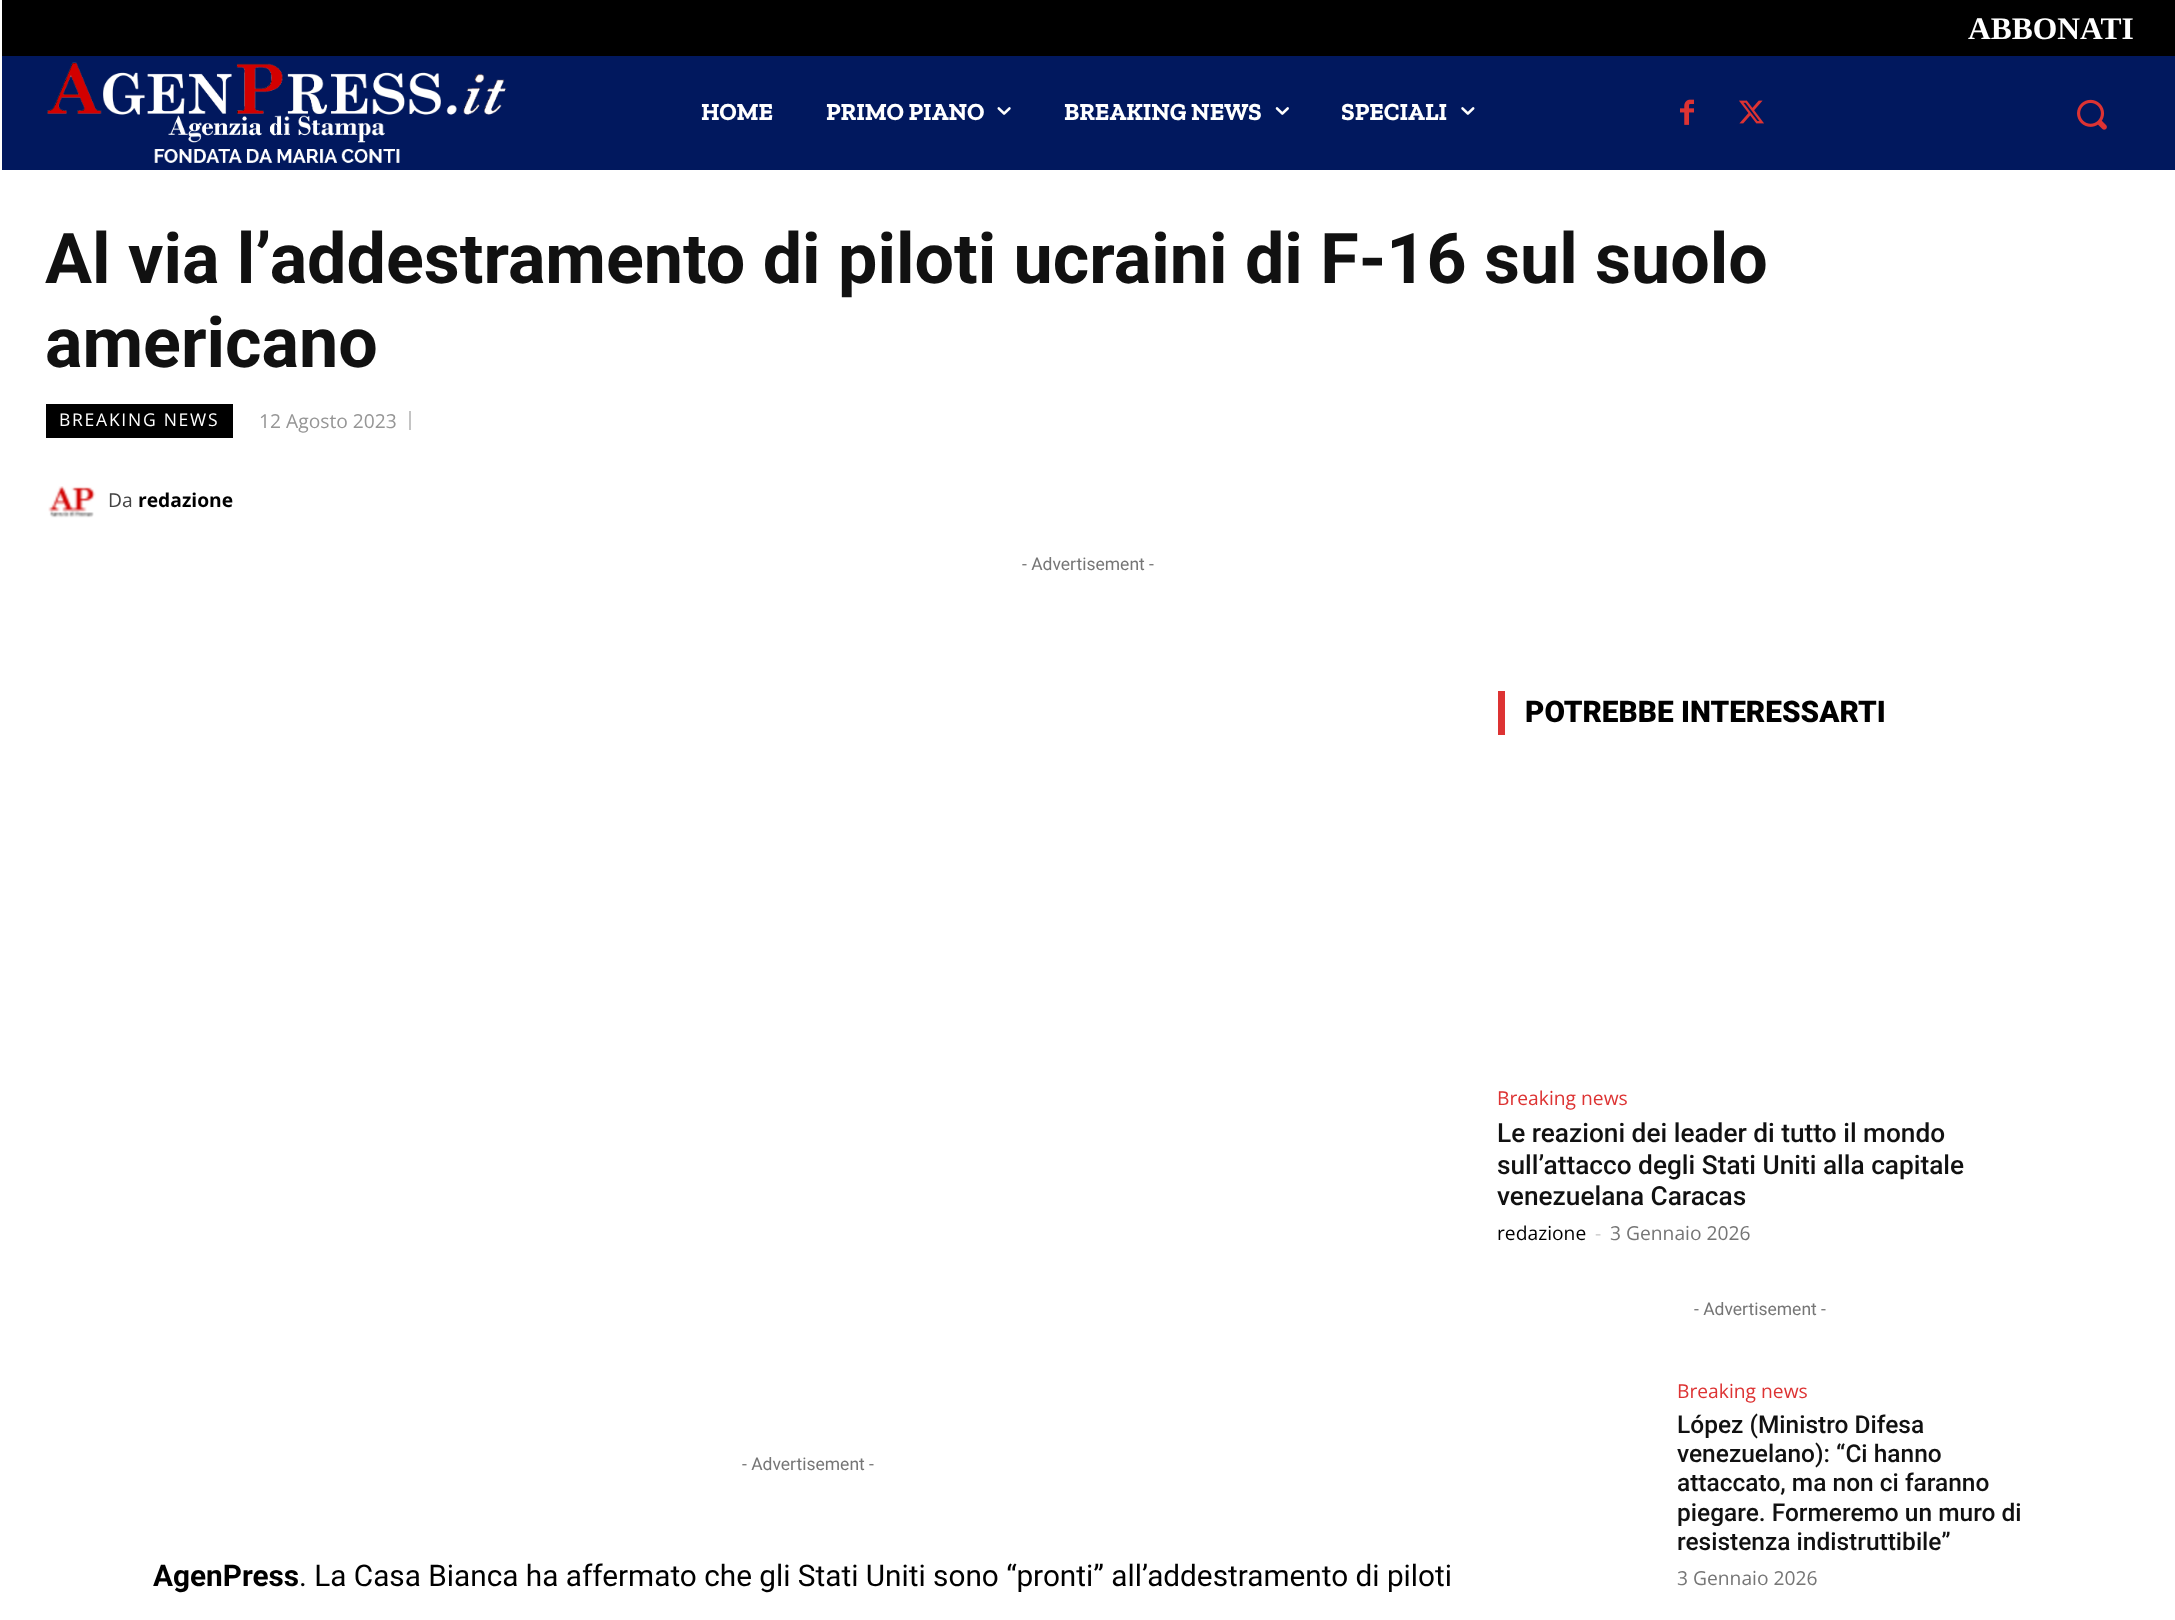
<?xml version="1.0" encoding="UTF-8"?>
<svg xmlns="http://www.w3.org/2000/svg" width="2175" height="1620">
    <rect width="100%" height="100%" fill="#FFFFFF"/>
    <rect x="2" y="0" width="2173" height="56" fill="#000000"/>
    <text x="1968" y="39" font-family="Liberation Serif" font-size="31.5" font-weight="700" fill="#FFFFFF">ABBONATI</text>
    <rect x="2" y="56" width="2173" height="114" fill="#01185E"/>
    <image x="47" y="62" width="460" height="101" href="img_01.png"/>
    <text x="701" y="120" font-family="Zilla Slab" font-size="24.5" font-weight="700" fill="#FFFFFF">HOME</text>
    <text x="826" y="120" font-family="Zilla Slab" font-size="24.5" font-weight="700" fill="#FFFFFF">PRIMO PIANO</text>
    <image x="997" y="107" width="14" height="8" href="img_02.png"/>
    <text x="1064" y="120" font-family="Zilla Slab" font-size="24.5" font-weight="700" fill="#FFFFFF">BREAKING NEWS</text>
    <image x="1275" y="107" width="14" height="8" href="img_03.png"/>
    <text x="1341" y="120" font-family="Zilla Slab" font-size="24.5" font-weight="700" fill="#FFFFFF">SPECIALI</text>
    <image x="1461" y="107" width="14" height="8" href="img_04.png"/>
    <image x="1680" y="99" width="14" height="26" href="img_05.png"/>
    <image x="1739" y="100" width="25" height="24" href="img_06.png"/>
    <image x="2077" y="99" width="30" height="31" href="img_07.png"/>
    <text font-family="Roboto" font-size="70" font-weight="700" fill="#111111">
        <tspan x="45" y="283">Al via l’addestramento di piloti ucraini di F-16 sul suolo</tspan>
        <tspan x="45" y="367">americano</tspan>
    </text>
    <rect x="46" y="404" width="187" height="34" fill="#000000"/>
    <text x="59" y="426" font-family="Open Sans" font-size="17.5" letter-spacing="1.75" fill="#FFFFFF">BREAKING NEWS</text>
    <text x="259" y="428" font-family="Open Sans" font-size="19.25" fill="#969696">12 Agosto 2023</text>
    <rect x="409" y="411" width="2" height="19" fill="#C4C4C4"/>
    <image x="48" y="486" width="48" height="32" href="img_08.png"/>
    <text x="108" y="507" font-family="Open Sans" font-size="19.25" fill="#444444">Da</text>
    <text x="138" y="507" font-family="Open Sans" font-size="19.25" font-weight="700" fill="#000000">redazione</text>
    <text x="1022" y="570" font-family="Roboto" font-size="17.5" fill="#767676">- Advertisement -</text>
    <text x="742" y="1470" font-family="Roboto" font-size="17.5" fill="#767676">- Advertisement -</text>
    <text x="153" y="1586" font-family="Roboto" font-size="29.75" font-weight="700" fill="#000000">AgenPress</text>
    <text x="299" y="1586" font-family="Roboto" font-size="29.75" fill="#000000">. La Casa Bianca ha affermato che gli Stati Uniti sono “pronti” all’addestramento di piloti</text>
    <rect x="1498" y="691" width="7" height="44" fill="#DD3333"/>
    <text x="1525" y="722" font-family="Roboto" font-size="29.75" font-weight="900" fill="#000000">POTREBBE INTERESSARTI</text>
    <text x="1497" y="1105" font-family="Open Sans" font-size="19.25" fill="#DD3333">Breaking news</text>
    <text font-family="Roboto" font-size="26.25" font-weight="500" fill="#111111">
        <tspan x="1497" y="1142">Le reazioni dei leader di tutto il mondo</tspan>
        <tspan x="1497" y="1174">sull’attacco degli Stati Uniti alla capitale</tspan>
        <tspan x="1497" y="1205">venezuelana Caracas</tspan>
    </text>
    <text x="1497" y="1240" font-family="Open Sans" font-size="19.25" fill="#000000">redazione</text>
    <text x="1595" y="1240" font-family="Open Sans" font-size="19.25" fill="#CCCCCC">-</text>
    <text x="1610" y="1240" font-family="Open Sans" font-size="19.25" fill="#767676">3 Gennaio 2026</text>
    <text x="1694" y="1315" font-family="Roboto" font-size="17.5" fill="#767676">- Advertisement -</text>
    <text x="1677" y="1398" font-family="Open Sans" font-size="19.25" fill="#DD3333">Breaking news</text>
    <text font-family="Roboto" font-size="24.5" font-weight="500" fill="#111111">
        <tspan x="1677" y="1433">López (Ministro Difesa</tspan>
        <tspan x="1677" y="1462">venezuelano): “Ci hanno</tspan>
        <tspan x="1677" y="1491">attaccato, ma non ci faranno</tspan>
        <tspan x="1677" y="1521">piegare. Formeremo un muro di</tspan>
        <tspan x="1677" y="1550">resistenza indistruttibile”</tspan>
    </text>
    <text x="1677" y="1585" font-family="Open Sans" font-size="19.25" fill="#767676">3 Gennaio 2026</text>
</svg>
